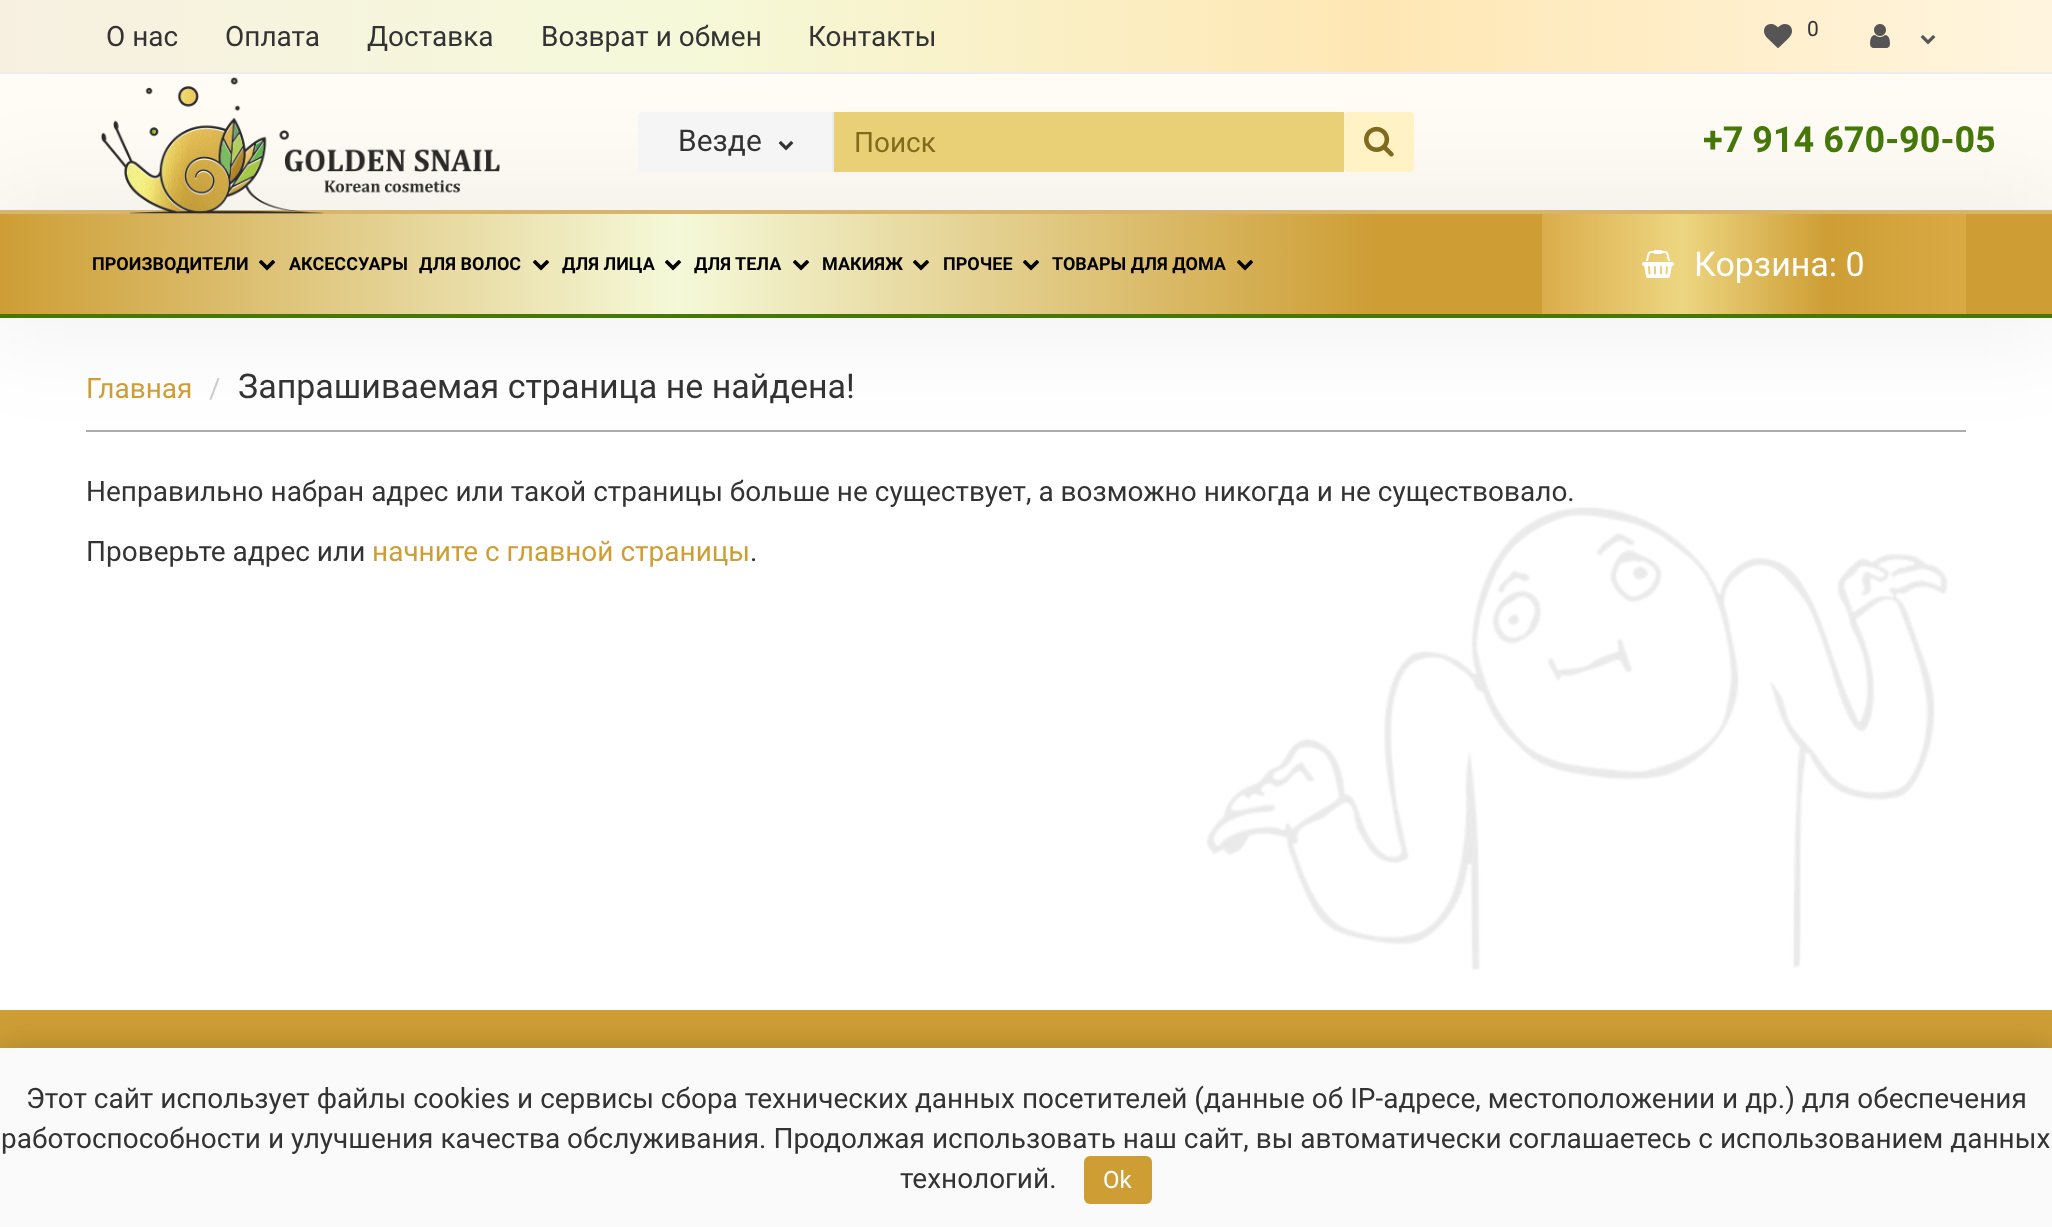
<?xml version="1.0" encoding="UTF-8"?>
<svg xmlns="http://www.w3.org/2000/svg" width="2052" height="1227">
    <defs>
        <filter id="blur1" x="-50%" y="-200%" width="200%" height="500%"><feGaussianBlur stdDeviation="50"/></filter>
        <linearGradient id="g1" gradientUnits="userSpaceOnUse" x1="0" y1="36" x2="2052" y2="36"><stop offset="0" stop-color="#F7F0E1"/><stop offset="0.33" stop-color="#F5F9D9"/><stop offset="0.67" stop-color="#FFE7B4"/><stop offset="1" stop-color="#FFF5DF"/></linearGradient>
        <linearGradient id="g2" gradientUnits="userSpaceOnUse" x1="0" y1="264" x2="2052" y2="264"><stop offset="0" stop-color="#CE9E35"/><stop offset="0.33" stop-color="#F5F9D9"/><stop offset="0.67" stop-color="#CE9E35"/><stop offset="1" stop-color="#CE9E35"/></linearGradient>
        <linearGradient id="g3" gradientUnits="userSpaceOnUse" x1="1542" y1="264" x2="1966" y2="264"><stop offset="0" stop-color="#DBAD4B"/><stop offset="0.33" stop-color="#EDD681"/><stop offset="0.67" stop-color="#CE9E35"/><stop offset="1" stop-color="#D9AA44"/></linearGradient>
        <filter id="blur2" x="-50%" y="-200%" width="200%" height="500%"><feGaussianBlur stdDeviation="15"/></filter>
    </defs>
    <rect width="100%" height="100%" fill="#FFFFFF"/>
    <rect x="86" y="430" width="1880" height="2" fill="#ADADAD"/>
    <rect x="-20" y="190" width="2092" height="148" fill="#000000" fill-opacity="0.05" filter="url(#blur1)"/>
    <rect x="0" y="0" width="2052" height="72" fill="url(#g1)"/>
    <rect x="0" y="72" width="2052" height="2" fill="#EDEDED"/>
    <text x="106" y="46" font-family="Roboto" font-size="28" fill="#333333">О нас</text>
    <text x="225" y="46" font-family="Roboto" font-size="28" fill="#333333">Оплата</text>
    <text x="367" y="46" font-family="Roboto" font-size="28" fill="#333333">Доставка</text>
    <text x="541" y="46" font-family="Roboto" font-size="28" fill="#333333">Возврат и обмен</text>
    <text x="808" y="46" font-family="Roboto" font-size="28" fill="#333333">Контакты</text>
    <image x="1764" y="24" width="28" height="24" href="img_01.png"/>
    <text x="1807" y="36" font-family="Roboto" font-size="21" fill="#333333">0</text>
    <image x="1870" y="24" width="20" height="24" href="img_02.png"/>
    <image x="1920" y="35" width="16" height="10" href="img_03.png"/>
    <rect x="0" y="74" width="2052" height="136" fill="#EBC539" fill-opacity="0.05"/>
    <rect x="0" y="210" width="2052" height="4" fill="#D7B56D"/>
    <image x="100" y="77" width="400" height="137" href="img_04.png"/>
    <rect x="638" y="112" width="776" height="60" rx="4" fill="#FCFCFC"/>
    <rect x="638" y="112" width="196" height="60" rx="4" fill="#F5F5F5"/>
    <text x="678" y="151" font-family="Roboto" font-size="30" fill="#333333">Везде</text>
    <image x="778" y="141" width="16" height="10" href="img_05.png"/>
    <rect x="834" y="112" width="510" height="60" fill="#E9D076"/>
    <rect x="832" y="112" width="2" height="60" fill="#EDEDED"/>
    <text x="854" y="152" font-family="Roboto" font-size="28" fill="#806A1D">Поиск</text>
    <rect x="1344" y="112" width="70" height="60" rx="4" fill="#FFF2C5"/>
    <image x="1364" y="126" width="30" height="31" href="img_06.png"/>
    <text x="1703" y="152" font-family="Roboto" font-size="36" font-weight="700" fill="#457808">+7 914 670-90-05</text>
    <rect x="0" y="214" width="2052" height="100" fill="url(#g2)"/>
    <rect x="0" y="314" width="2052" height="4" fill="#457808"/>
    <text x="92" y="270" font-family="Roboto" font-size="18" font-weight="700" fill="#000000">ПРОИЗВОДИТЕЛИ</text>
    <image x="258" y="260" width="18" height="11" href="img_07.png"/>
    <text x="289" y="270" font-family="Roboto" font-size="18" font-weight="700" fill="#000000">АКСЕССУАРЫ</text>
    <text x="419" y="270" font-family="Roboto" font-size="18" font-weight="700" fill="#000000">ДЛЯ ВОЛОС</text>
    <image x="532" y="260" width="18" height="11" href="img_08.png"/>
    <text x="562" y="270" font-family="Roboto" font-size="18" font-weight="700" fill="#000000">ДЛЯ ЛИЦА</text>
    <image x="664" y="260" width="18" height="11" href="img_09.png"/>
    <text x="694" y="270" font-family="Roboto" font-size="18" font-weight="700" fill="#000000">ДЛЯ ТЕЛА</text>
    <image x="792" y="260" width="18" height="11" href="img_10.png"/>
    <text x="822" y="270" font-family="Roboto" font-size="18" font-weight="700" fill="#000000">МАКИЯЖ</text>
    <image x="912" y="260" width="18" height="11" href="img_11.png"/>
    <text x="943" y="270" font-family="Roboto" font-size="18" font-weight="700" fill="#000000">ПРОЧЕЕ</text>
    <image x="1022" y="260" width="18" height="11" href="img_12.png"/>
    <text x="1052" y="270" font-family="Roboto" font-size="18" font-weight="700" fill="#000000">ТОВАРЫ ДЛЯ ДОМА</text>
    <image x="1236" y="260" width="18" height="11" href="img_13.png"/>
    <rect x="1542" y="214" width="424" height="100" fill="url(#g3)"/>
    <image x="1642" y="250" width="32" height="28" href="img_14.png"/>
    <text x="1694" y="276" font-family="Roboto" font-size="34" fill="#FFFFFF">Корзина: 0</text>
    <text x="86" y="398" font-family="Roboto" font-size="28" fill="#CE9E35">Главная</text>
    <text x="209" y="398" font-family="Roboto" font-size="28" fill="#CCCCCC">/</text>
    <text x="238" y="398" font-family="Roboto" font-size="34" fill="#333333">Запрашиваемая страница не найдена!</text>
    <text x="86" y="501" font-family="Roboto" font-size="28" fill="#333333">Неправильно набран адрес или такой страницы больше не существует, а возможно никогда и не существовало.</text>
    <text x="86" y="561" font-family="Roboto" font-size="28" fill="#333333">Проверьте адрес или</text>
    <text x="372" y="561" font-family="Roboto" font-size="28" fill="#CE9E35">начните с главной страницы</text>
    <text x="750" y="561" font-family="Roboto" font-size="28" fill="#333333">.</text>
    <image x="1206" y="507" width="742" height="463" href="img_15.png"/>
    <rect x="0" y="1010" width="2052" height="38" fill="#CE9E35"/>
    <rect x="0" y="1048" width="2052" height="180" fill="#000000" fill-opacity="0.2" filter="url(#blur2)"/>
    <rect x="0" y="1048" width="2052" height="179" fill="#FAFAFA"/>
    <text x="26" y="1108" font-family="Roboto" font-size="28" fill="#333333">Этот сайт использует файлы cookies и сервисы сбора технических данных посетителей (данные об IP-адресе, местоположении и др.) для обеспечения</text>
    <text x="1" y="1148" font-family="Roboto" font-size="28" fill="#333333">работоспособности и улучшения качества обслуживания. Продолжая использовать наш сайт, вы автоматически соглашаетесь с использованием данных</text>
    <text x="900" y="1188" font-family="Roboto" font-size="28" fill="#333333">технологий.</text>
    <rect x="1084" y="1156" width="68" height="48" rx="6" fill="#CE9E35"/>
    <text x="1103" y="1188" font-family="Roboto" font-size="24" fill="#FFFFFF">Ok</text>
</svg>
